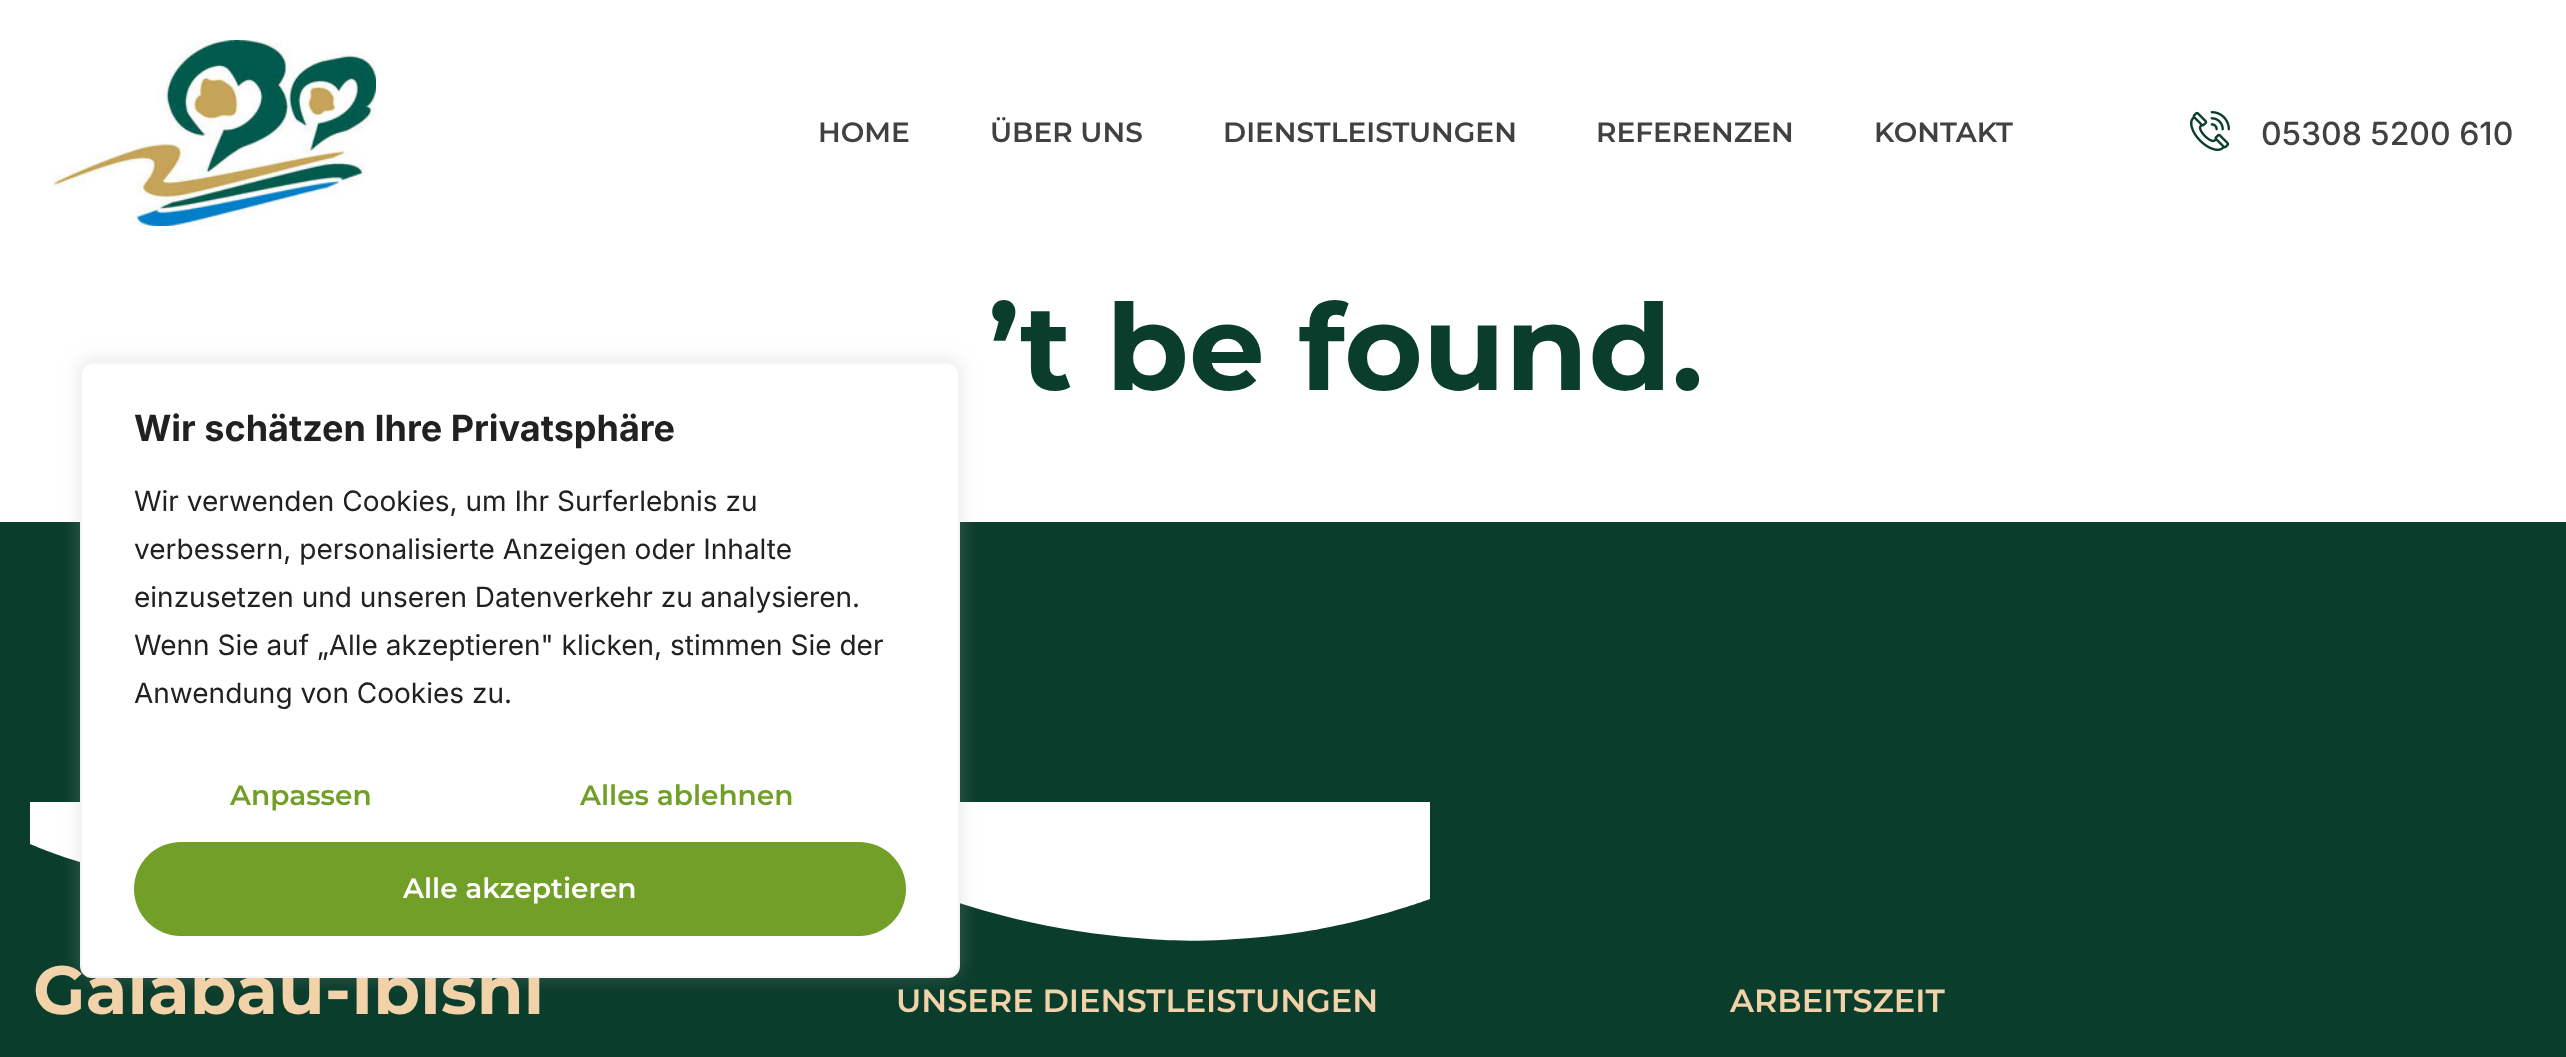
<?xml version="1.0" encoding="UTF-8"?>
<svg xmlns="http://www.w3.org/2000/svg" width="2566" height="1057">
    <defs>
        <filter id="blur1" x="-50%" y="-200%" width="200%" height="500%"><feGaussianBlur stdDeviation="10"/></filter>
    </defs>
    <rect width="100%" height="100%" fill="#FFFFFF"/>
    <image x="54" y="40" width="322" height="186" href="img_01.png"/>
    <text x="818" y="142" font-family="Montserrat" font-size="28" font-weight="600" fill="#414141">HOME</text>
    <text x="990" y="142" font-family="Montserrat" font-size="28" font-weight="600" fill="#414141">ÜBER UNS</text>
    <text x="1223" y="142" font-family="Montserrat" font-size="28" font-weight="600" fill="#414141">DIENSTLEISTUNGEN</text>
    <text x="1596" y="142" font-family="Montserrat" font-size="28" font-weight="600" fill="#414141">REFERENZEN</text>
    <text x="1874" y="142" font-family="Montserrat" font-size="28" font-weight="600" fill="#414141">KONTAKT</text>
    <image x="2190" y="111" width="40" height="40" href="img_02.png"/>
    <text x="2261" y="145" font-family="Inter" font-size="32" font-weight="500" fill="#414141">05308 5200 610</text>
    <text x="988" y="390" font-family="Montserrat" font-size="120" font-weight="700" fill="#0B3D2C">’t be found.</text>
    <rect x="0" y="522" width="2566" height="535" fill="#0B3D2C"/>
    <path d="M 621 811 C 652 808 693 812 726 819 C 759 825 826 851 867 868 C 973 914 1054 931 1137 938 C 1170 941 1205 943 1281 935 C 1358 926 1430 899 1430 899 V 802 H 30 V 844 C 30 844 131 890 252 887 C 307 886 382 878 439 856 C 469 844 512 830 551 822 C 589 813 606 812 621 811 Z" fill="#FFFFFF"/>
    <rect x="80" y="360" width="880" height="616" rx="12" fill="#ACABAB" fill-opacity="0.3" filter="url(#blur1)"/>
    <text x="33" y="1014" font-family="Montserrat" font-size="68" font-weight="700" fill="#F1D2A9">Galabau-Ibishi</text>
    <rect x="81" y="363" width="878" height="614" rx="11" fill="#FFFFFF" stroke="#F4F4F4" stroke-width="2"/>
    <text x="134" y="441" font-family="Inter" font-size="36" font-weight="700" fill="#212121">Wir schätzen Ihre Privatsphäre</text>
    <text font-family="Inter" font-size="28" fill="#212121">
        <tspan x="134" y="511">Wir verwenden Cookies, um Ihr Surferlebnis zu</tspan>
        <tspan x="134" y="559">verbessern, personalisierte Anzeigen oder Inhalte</tspan>
        <tspan x="134" y="607">einzusetzen und unseren Datenverkehr zu analysieren.</tspan>
        <tspan x="134" y="655">Wenn Sie auf „Alle akzeptieren" klicken, stimmen Sie der</tspan>
        <tspan x="134" y="703">Anwendung von Cookies zu.</tspan>
    </text>
    <text x="230" y="805" font-family="Montserrat" font-size="28" font-weight="600" fill="#729F28">Anpassen</text>
    <text x="580" y="805" font-family="Montserrat" font-size="28" font-weight="600" fill="#729F28">Alles ablehnen</text>
    <rect x="134" y="842" width="772" height="94" rx="47" fill="#729F28"/>
    <text x="403" y="898" font-family="Montserrat" font-size="28" font-weight="600" fill="#FFFFFF">Alle akzeptieren</text>
    <text x="896" y="1012" font-family="Montserrat" font-size="32" font-weight="600" fill="#F1D2A9">UNSERE DIENSTLEISTUNGEN</text>
    <text x="1730" y="1012" font-family="Montserrat" font-size="32" font-weight="600" fill="#F1D2A9">ARBEITSZEIT</text>
</svg>
